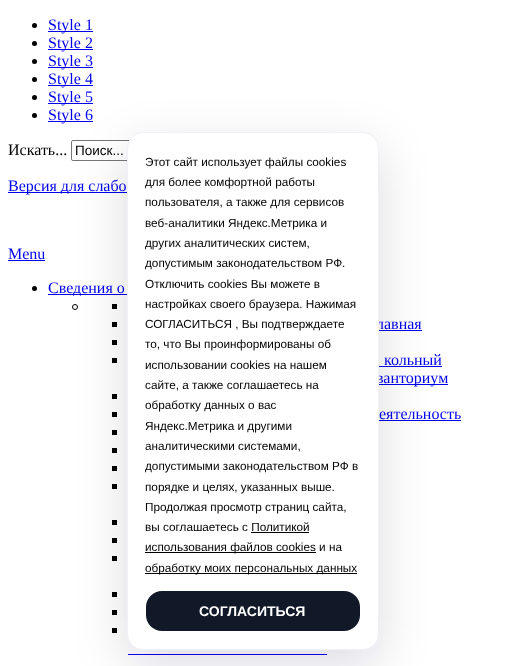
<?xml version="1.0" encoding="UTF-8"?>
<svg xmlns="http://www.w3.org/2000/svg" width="505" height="666">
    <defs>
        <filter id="blur1" x="-50%" y="-200%" width="200%" height="500%"><feGaussianBlur stdDeviation="25"/></filter>
    </defs>
    <rect width="100%" height="100%" fill="#FFFFFF"/>
    <circle cx="34.5" cy="25.5" r="2.5" fill="#000000"/>
    <rect x="48" y="31" width="45" height="1" fill="#0000EE"/>
    <text x="48" y="30" font-family="Liberation Serif" font-size="16" fill="#0000EE">Style 1</text>
    <circle cx="34.5" cy="43.5" r="2.5" fill="#000000"/>
    <rect x="48" y="49" width="45" height="1" fill="#0000EE"/>
    <text x="48" y="48" font-family="Liberation Serif" font-size="16" fill="#0000EE">Style 2</text>
    <circle cx="34.5" cy="61.5" r="2.5" fill="#000000"/>
    <rect x="48" y="67" width="45" height="1" fill="#0000EE"/>
    <text x="48" y="66" font-family="Liberation Serif" font-size="16" fill="#0000EE">Style 3</text>
    <circle cx="34.5" cy="79.5" r="2.5" fill="#000000"/>
    <rect x="48" y="85" width="45" height="1" fill="#0000EE"/>
    <text x="48" y="84" font-family="Liberation Serif" font-size="16" fill="#0000EE">Style 4</text>
    <circle cx="34.5" cy="97.5" r="2.5" fill="#000000"/>
    <rect x="48" y="103" width="45" height="1" fill="#0000EE"/>
    <text x="48" y="102" font-family="Liberation Serif" font-size="16" fill="#0000EE">Style 5</text>
    <circle cx="34.5" cy="115.5" r="2.5" fill="#000000"/>
    <rect x="48" y="121" width="45" height="1" fill="#0000EE"/>
    <text x="48" y="120" font-family="Liberation Serif" font-size="16" fill="#0000EE">Style 6</text>
    <text x="8" y="155" font-family="Liberation Serif" font-size="16" fill="#000000">Искать...</text>
    <rect x="71.5" y="140.5" width="184" height="20" rx="1.5" fill="none" stroke="#767676"/>
    <text x="75" y="155" font-family="Liberation Sans" font-size="13.5" fill="#000000">Поиск...</text>
    <rect x="8" y="192" width="119" height="1" fill="#0000EE"/>
    <text x="8" y="191" font-family="Liberation Serif" font-size="16" fill="#0000EE">Версия для слабо</text>
    <text x="8" y="259" font-family="Liberation Serif" font-size="16" fill="#0000EE">Menu</text>
    <rect x="8" y="260" width="37" height="1" fill="#0000EE"/>
    <circle cx="34.5" cy="288.5" r="2.5" fill="#000000"/>
    <rect x="48" y="294" width="79" height="1" fill="#0000EE"/>
    <text x="48" y="293" font-family="Liberation Serif" font-size="16" fill="#0000EE">Сведения о</text>
    <circle cx="75" cy="307" r="2.5" fill="none" stroke="#000000"/>
    <rect x="112" y="304" width="5" height="5" fill="#000000"/>
    <rect x="112" y="322" width="5" height="5" fill="#000000"/>
    <rect x="112" y="340" width="5" height="5" fill="#000000"/>
    <rect x="112" y="358" width="5" height="5" fill="#000000"/>
    <rect x="112" y="394" width="5" height="5" fill="#000000"/>
    <rect x="112" y="412" width="5" height="5" fill="#000000"/>
    <rect x="112" y="430" width="5" height="5" fill="#000000"/>
    <rect x="112" y="448" width="5" height="5" fill="#000000"/>
    <rect x="112" y="466" width="5" height="5" fill="#000000"/>
    <rect x="112" y="484" width="5" height="5" fill="#000000"/>
    <rect x="112" y="520" width="5" height="5" fill="#000000"/>
    <rect x="112" y="538" width="5" height="5" fill="#000000"/>
    <rect x="112" y="556" width="5" height="5" fill="#000000"/>
    <rect x="112" y="592" width="5" height="5" fill="#000000"/>
    <rect x="112" y="610" width="5" height="5" fill="#000000"/>
    <rect x="112" y="628" width="5" height="5" fill="#000000"/>
    <rect x="128" y="654" width="199" height="1" fill="#0000EE"/>
    <text x="376" y="329" font-family="Liberation Serif" font-size="16" fill="#0000EE">лавная</text>
    <rect x="379" y="330" width="43" height="1" fill="#0000EE"/>
    <text x="384" y="365" font-family="Liberation Serif" font-size="16" fill="#0000EE">кольный</text>
    <rect x="379" y="366" width="63" height="1" fill="#0000EE"/>
    <rect x="379" y="384" width="69" height="1" fill="#0000EE"/>
    <text x="376" y="383" font-family="Liberation Serif" font-size="16" fill="#0000EE">ванториум</text>
    <text x="379" y="419" font-family="Liberation Serif" font-size="16" fill="#0000EE">еятельность</text>
    <rect x="379" y="420" width="82" height="1" fill="#0000EE"/>
    <rect x="127" y="148" width="252" height="518" rx="16" fill="#101828" fill-opacity="0.14" filter="url(#blur1)"/>
    <rect x="127.5" y="132.5" width="251" height="517" rx="15.5" fill="#FFFFFF" stroke="#EEF1F6"/>
    <text font-family="Liberation Sans" font-size="11.75" fill="#000000">
        <tspan x="145" y="166">Этот сайт использует файлы cookies</tspan>
        <tspan x="145" y="186">для более комфортной работы</tspan>
        <tspan x="145" y="206">пользователя, а также для сервисов</tspan>
        <tspan x="145" y="227">веб-аналитики Яндекс.Метрика и</tspan>
        <tspan x="145" y="247">других аналитических систем,</tspan>
        <tspan x="145" y="267">допустимым законодательством РФ.</tspan>
        <tspan x="145" y="288">Отключить cookies Вы можете в</tspan>
        <tspan x="145" y="308">настройках своего браузера. Нажимая</tspan>
        <tspan x="145" y="328">СОГЛАСИТЬСЯ , Вы подтверждаете</tspan>
        <tspan x="145" y="348">то, что Вы проинформированы об</tspan>
        <tspan x="145" y="369">использовании cookies на нашем</tspan>
        <tspan x="145" y="389">сайте, а также соглашаетесь на</tspan>
        <tspan x="145" y="409">обработку данных о вас</tspan>
        <tspan x="145" y="430">Яндекс.Метрика и другими</tspan>
        <tspan x="145" y="450">аналитическими системами,</tspan>
        <tspan x="145" y="470">допустимыми законодательством РФ в</tspan>
        <tspan x="145" y="491">порядке и целях, указанных выше.</tspan>
        <tspan x="145" y="511">Продолжая просмотр страниц сайта,</tspan>
        <tspan x="145" y="531">вы соглашаетесь с Политикой</tspan>
    </text>
    <rect x="251" y="532" width="58" height="1" fill="#000000"/>
    <rect x="145" y="552" width="171" height="1" fill="#000000"/>
    <text x="145" y="551" font-family="Liberation Sans" font-size="11.75" fill="#000000">использования файлов cookies и на</text>
    <rect x="145" y="573" width="212" height="1" fill="#000000"/>
    <text x="145" y="572" font-family="Liberation Sans" font-size="11.75" fill="#000000">обработку моих персональных данных</text>
    <rect x="146" y="591" width="214" height="40" rx="16" fill="#111827"/>
    <text x="199" y="616" font-family="Liberation Sans" font-size="14" font-weight="700" fill="#FFFFFF">СОГЛАСИТЬСЯ</text>
</svg>
